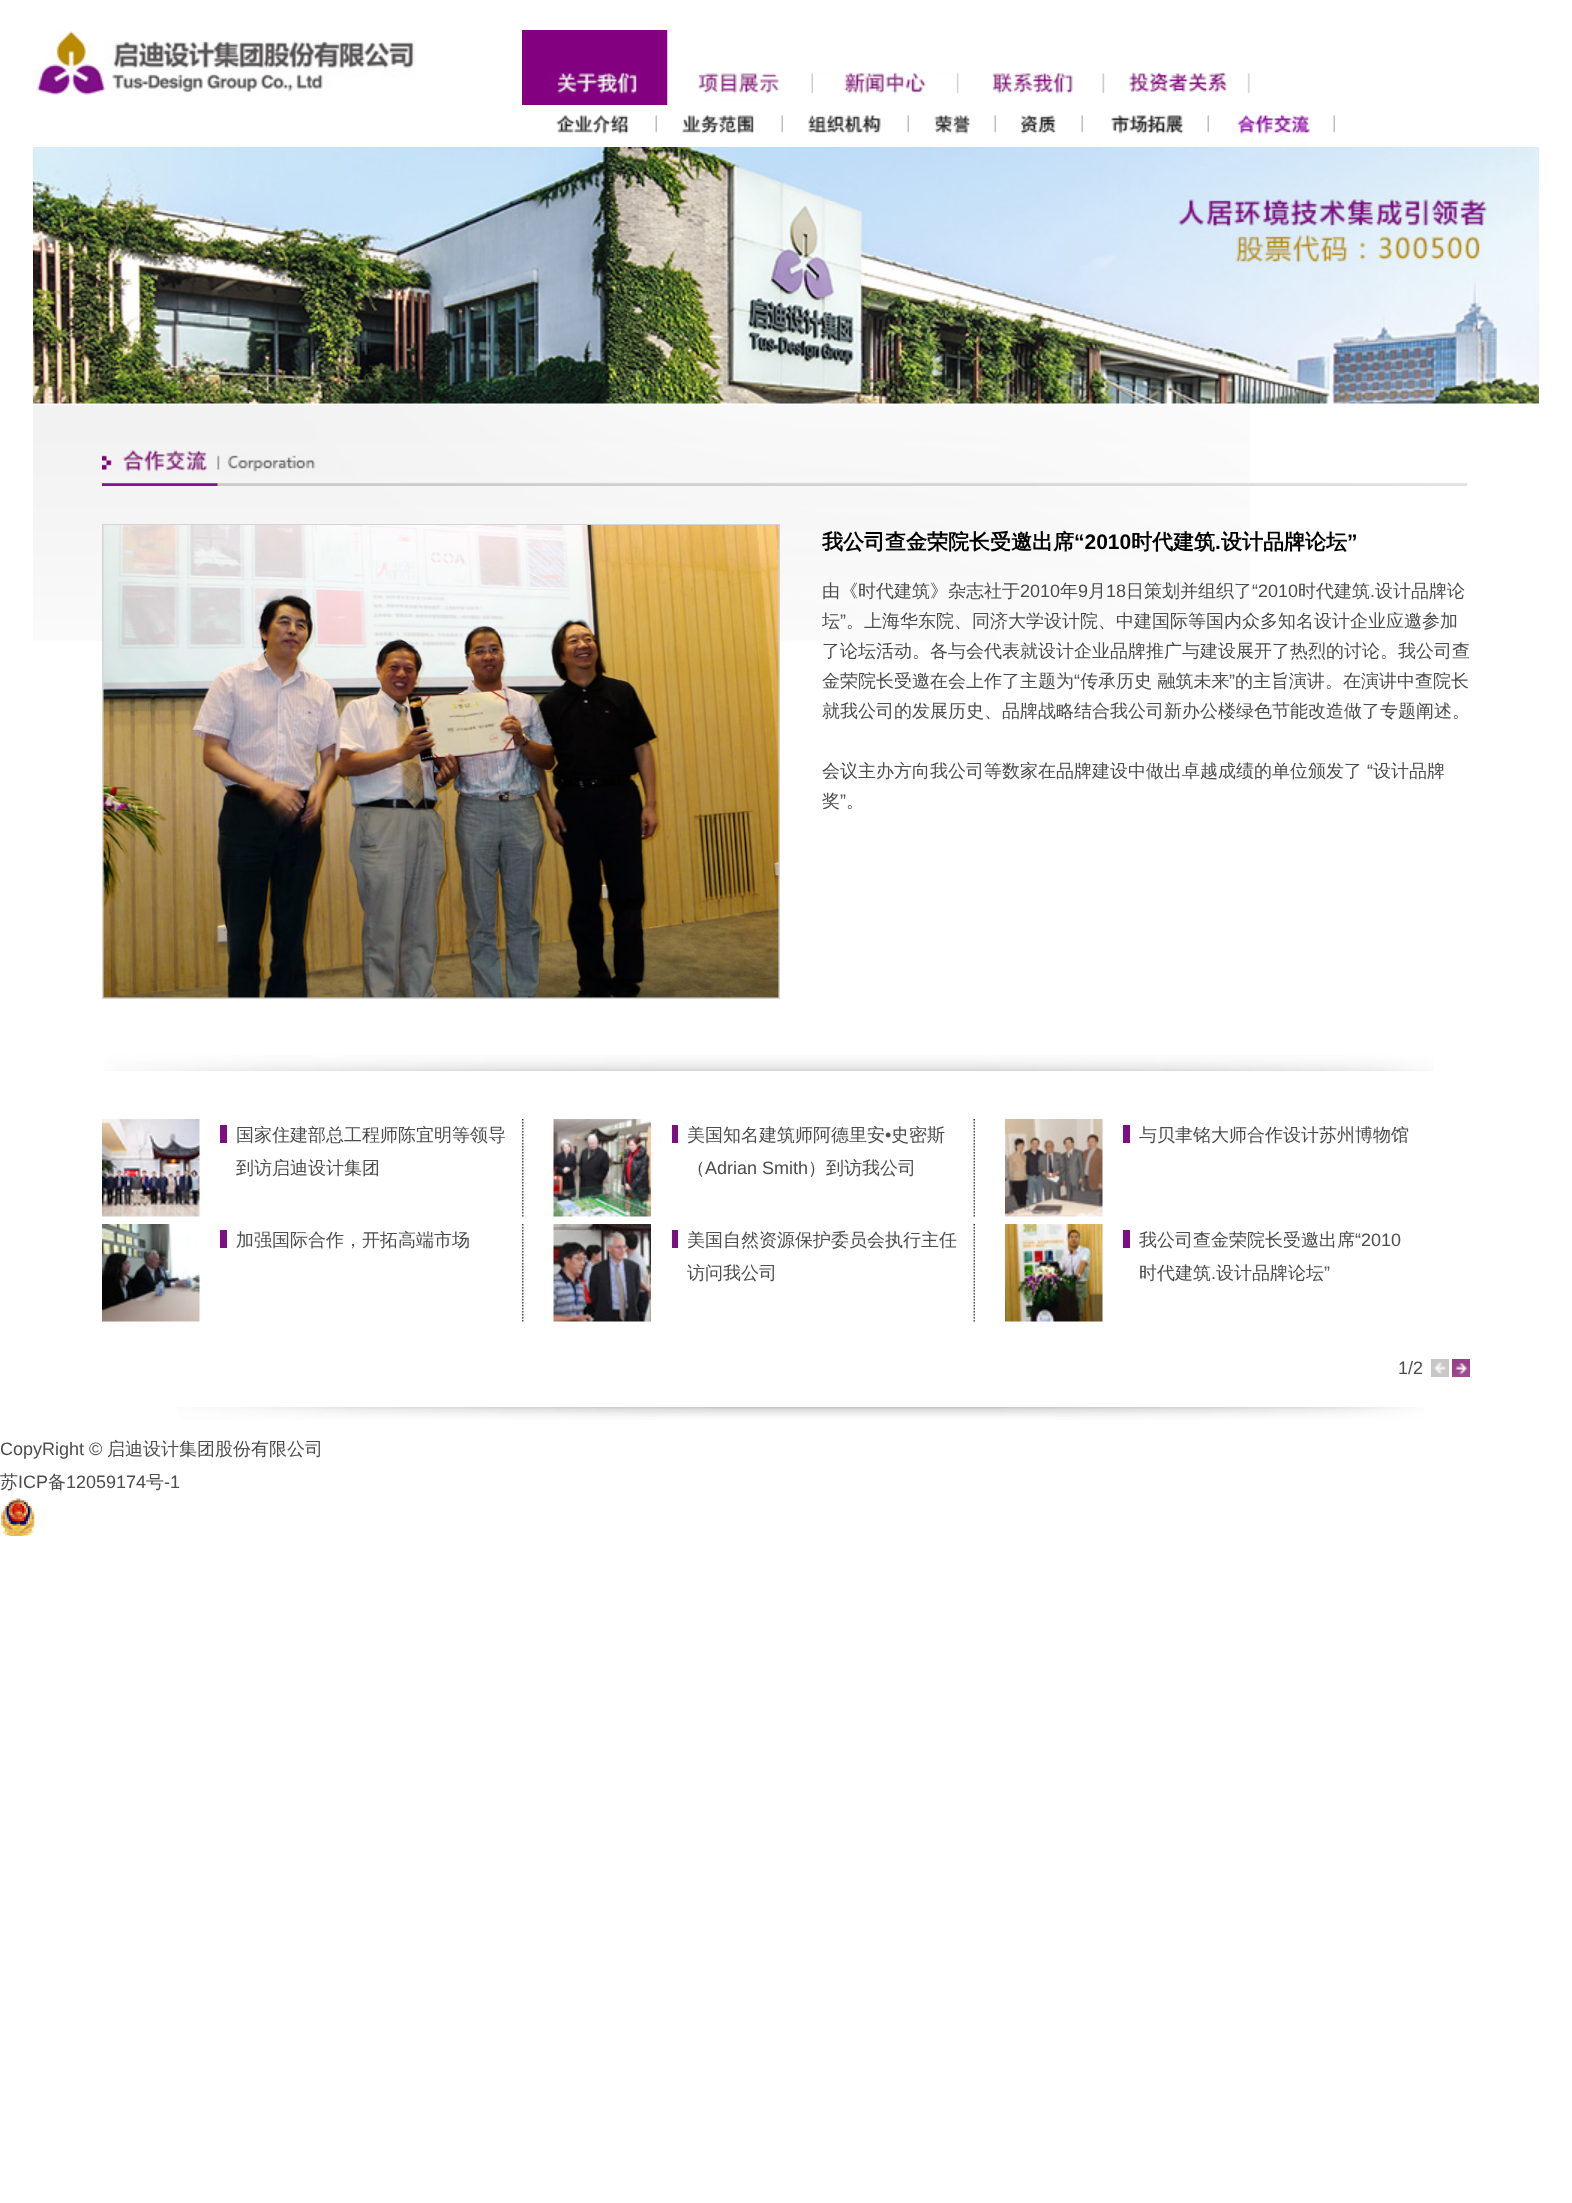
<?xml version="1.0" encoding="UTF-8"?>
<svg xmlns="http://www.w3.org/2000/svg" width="1572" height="2203">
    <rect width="100%" height="100%" fill="#FFFFFF"/>
    <image x="33" y="30" width="382" height="66" href="img_01.png"/>
    <image x="667" y="72" width="583" height="22" href="img_02.png"/>
    <image x="522" y="30" width="146" height="75" href="img_03.png"/>
    <image x="556" y="115" width="101" height="19" href="img_04.png"/>
    <image x="682" y="115" width="101" height="19" href="img_05.png"/>
    <image x="808" y="115" width="101" height="19" href="img_06.png"/>
    <image x="934" y="115" width="62" height="19" href="img_07.png"/>
    <image x="1020" y="115" width="63" height="19" href="img_08.png"/>
    <image x="1111" y="115" width="98" height="19" href="img_09.png"/>
    <image x="1237" y="115" width="98" height="19" href="img_10.png"/>
    <image x="667" y="30" width="146" height="75" href="img_11.png"/>
    <image x="813" y="73" width="146" height="20" href="img_12.png"/>
    <image x="958" y="73" width="146" height="20" href="img_13.png"/>
    <image x="33" y="147" width="1506" height="257" href="img_14.png"/>
    <image x="33" y="405" width="1217" height="236" href="img_15.png"/>
    <image x="102" y="482" width="1365" height="4" href="img_16.png"/>
    <image x="102" y="449" width="300" height="34" href="img_17.png"/>
    <image x="104" y="1055" width="1330" height="16" href="img_18.png"/>
    <rect x="103" y="525" width="676" height="473" fill="none" stroke="#D4D4D4" stroke-width="2"/>
    <image x="103" y="525" width="676" height="473" href="img_19.png"/>
    <text x="822" y="549" font-family="WenQuanYi Zen Hei" font-size="21" font-weight="700" fill="#000000">我公司查金荣院长受邀出席</text>
    <text x="1074" y="549" font-family="Liberation Sans" font-size="21" font-weight="700" fill="#000000">“2010</text>
    <text x="1131" y="549" font-family="WenQuanYi Zen Hei" font-size="21" font-weight="700" fill="#000000">时代建筑</text>
    <text x="1221" y="549" font-family="WenQuanYi Zen Hei" font-size="21" font-weight="700" fill="#000000">设计品牌论坛</text>
    <text x="1347" y="549" font-family="Liberation Sans" font-size="21" font-weight="700" fill="#000000">”</text>
    <text x="1215" y="549" font-family="Liberation Sans" font-size="21" font-weight="700" fill="#000000">.</text>
    <text x="822" y="597" font-family="WenQuanYi Zen Hei" font-size="18" font-weight="500" fill="#4C4C4C">由《时代建筑》杂志社于</text>
    <text x="1020" y="597" font-family="Liberation Sans" font-size="18" fill="#4C4C4C">2010</text>
    <text x="1060" y="597" font-family="WenQuanYi Zen Hei" font-size="18" font-weight="500" fill="#4C4C4C">年</text>
    <text x="1078" y="597" font-family="Liberation Sans" font-size="18" fill="#4C4C4C">9</text>
    <text x="1088" y="597" font-family="WenQuanYi Zen Hei" font-size="18" font-weight="500" fill="#4C4C4C">月</text>
    <text x="1106" y="597" font-family="Liberation Sans" font-size="18" fill="#4C4C4C">18</text>
    <text x="1126" y="597" font-family="WenQuanYi Zen Hei" font-size="18" font-weight="500" fill="#4C4C4C">日策划并组织了</text>
    <text x="1252" y="597" font-family="Liberation Sans" font-size="18" fill="#4C4C4C">“2010</text>
    <text x="1298" y="597" font-family="WenQuanYi Zen Hei" font-size="18" font-weight="500" fill="#4C4C4C">时代建筑</text>
    <text x="1370" y="597" font-family="Liberation Sans" font-size="18" fill="#4C4C4C">.</text>
    <text x="1375" y="597" font-family="WenQuanYi Zen Hei" font-size="18" font-weight="500" fill="#4C4C4C">设计品牌论</text>
    <text x="822" y="627" font-family="WenQuanYi Zen Hei" font-size="18" font-weight="500" fill="#4C4C4C">坛</text>
    <text x="840" y="627" font-family="Liberation Sans" font-size="18" fill="#4C4C4C">”</text>
    <text x="846" y="627" font-family="WenQuanYi Zen Hei" font-size="18" font-weight="500" fill="#4C4C4C">。上海华东院、同济大学设计院、中建国际等国内众多知名设计企业应邀参加</text>
    <text font-family="WenQuanYi Zen Hei" font-size="18" font-weight="500" fill="#4C4C4C">
        <tspan x="822" y="657">了论坛活动。各与会代表就设计企业品牌推广与建设展开了热烈的讨论。我公司查</tspan>
        <tspan x="822" y="687">金荣院长受邀在会上作了主题为</tspan>
    </text>
    <text x="1074" y="687" font-family="Liberation Sans" font-size="18" fill="#4C4C4C">“</text>
    <text x="1080" y="687" font-family="WenQuanYi Zen Hei" font-size="18" font-weight="500" fill="#4C4C4C">传承历史 融筑未来</text>
    <text x="1229" y="687" font-family="Liberation Sans" font-size="18" fill="#4C4C4C">”</text>
    <text x="1235" y="687" font-family="WenQuanYi Zen Hei" font-size="18" font-weight="500" fill="#4C4C4C">的主旨演讲。在演讲中查院长</text>
    <text x="822" y="717" font-family="WenQuanYi Zen Hei" font-size="18" font-weight="500" fill="#4C4C4C">就我公司的发展历史、品牌战略结合我公司新办公楼绿色节能改造做了专题阐述。</text>
    <text x="822" y="777" font-family="WenQuanYi Zen Hei" font-size="18" font-weight="500" fill="#4C4C4C">会议主办方向我公司等数家在品牌建设中做出卓越成绩的单位颁发了</text>
    <text x="1367" y="777" font-family="Liberation Sans" font-size="18" fill="#4C4C4C">“</text>
    <text x="1373" y="777" font-family="WenQuanYi Zen Hei" font-size="18" font-weight="500" fill="#4C4C4C">设计品牌</text>
    <text x="822" y="807" font-family="WenQuanYi Zen Hei" font-size="18" font-weight="500" fill="#4C4C4C">奖</text>
    <text x="840" y="807" font-family="Liberation Sans" font-size="18" fill="#4C4C4C">”</text>
    <text x="846" y="807" font-family="WenQuanYi Zen Hei" font-size="18" font-weight="500" fill="#4C4C4C">。</text>
    <image x="522" y="1119" width="2" height="98" href="img_20.png"/>
    <image x="102" y="1119" width="98" height="98" href="img_21.png"/>
    <rect x="220" y="1125" width="7" height="18" fill="#7D0E84"/>
    <text font-family="WenQuanYi Zen Hei" font-size="18" font-weight="500" fill="#4C4C4C">
        <tspan x="236" y="1141">国家住建部总工程师陈宜明等领导</tspan>
        <tspan x="236" y="1174">到访启迪设计集团</tspan>
    </text>
    <image x="973" y="1119" width="2" height="98" href="img_22.png"/>
    <image x="553" y="1119" width="98" height="98" href="img_23.png"/>
    <rect x="672" y="1125" width="6" height="18" fill="#7D0E84"/>
    <text x="687" y="1141" font-family="WenQuanYi Zen Hei" font-size="18" font-weight="500" fill="#4C4C4C">美国知名建筑师阿德里安</text>
    <text x="885" y="1141" font-family="Liberation Sans" font-size="18" fill="#4C4C4C">•</text>
    <text x="891" y="1141" font-family="WenQuanYi Zen Hei" font-size="18" font-weight="500" fill="#4C4C4C">史密斯</text>
    <text x="687" y="1174" font-family="WenQuanYi Zen Hei" font-size="18" font-weight="500" fill="#4C4C4C">（</text>
    <text x="705" y="1174" font-family="Liberation Sans" font-size="18" fill="#4C4C4C">Adrian Smith</text>
    <text x="808" y="1174" font-family="WenQuanYi Zen Hei" font-size="18" font-weight="500" fill="#4C4C4C">）到访我公司</text>
    <image x="1005" y="1119" width="98" height="98" href="img_24.png"/>
    <rect x="1123" y="1125" width="7" height="18" fill="#7D0E84"/>
    <text x="1139" y="1141" font-family="WenQuanYi Zen Hei" font-size="18" font-weight="500" fill="#4C4C4C">与贝聿铭大师合作设计苏州博物馆</text>
    <image x="522" y="1224" width="2" height="98" href="img_20.png"/>
    <image x="102" y="1224" width="98" height="98" href="img_25.png"/>
    <rect x="220" y="1230" width="7" height="18" fill="#7D0E84"/>
    <text x="236" y="1246" font-family="WenQuanYi Zen Hei" font-size="18" font-weight="500" fill="#4C4C4C">加强国际合作，开拓高端市场</text>
    <image x="973" y="1224" width="2" height="98" href="img_22.png"/>
    <image x="553" y="1224" width="98" height="98" href="img_26.png"/>
    <rect x="672" y="1230" width="6" height="18" fill="#7D0E84"/>
    <text font-family="WenQuanYi Zen Hei" font-size="18" font-weight="500" fill="#4C4C4C">
        <tspan x="687" y="1246">美国自然资源保护委员会执行主任</tspan>
        <tspan x="687" y="1279">访问我公司</tspan>
    </text>
    <image x="1005" y="1224" width="98" height="98" href="img_27.png"/>
    <rect x="1123" y="1230" width="7" height="18" fill="#7D0E84"/>
    <text x="1139" y="1246" font-family="WenQuanYi Zen Hei" font-size="18" font-weight="500" fill="#4C4C4C">我公司查金荣院长受邀出席</text>
    <text x="1355" y="1246" font-family="Liberation Sans" font-size="18" fill="#4C4C4C">“2010</text>
    <text x="1139" y="1279" font-family="WenQuanYi Zen Hei" font-size="18" font-weight="500" fill="#4C4C4C">时代建筑</text>
    <text x="1216" y="1279" font-family="WenQuanYi Zen Hei" font-size="18" font-weight="500" fill="#4C4C4C">设计品牌论坛</text>
    <text x="1324" y="1279" font-family="Liberation Sans" font-size="18" fill="#4C4C4C">”</text>
    <text x="1211" y="1279" font-family="Liberation Sans" font-size="18" fill="#4C4C4C">.</text>
    <text x="1398" y="1374" font-family="Liberation Sans" font-size="18" fill="#4C4C4C">1/2</text>
    <image x="1431" y="1359" width="18" height="18" href="img_28.png"/>
    <image x="1452" y="1359" width="18" height="18" href="img_29.png"/>
    <image x="178" y="1407" width="1246" height="13" href="img_30.png"/>
    <text x="0" y="1455" font-family="Liberation Sans" font-size="18" fill="#4C4C4C">CopyRight ©</text>
    <text x="107" y="1455" font-family="WenQuanYi Zen Hei" font-size="18" font-weight="500" fill="#4C4C4C">启迪设计集团股份有限公司</text>
    <text x="0" y="1488" font-family="WenQuanYi Zen Hei" font-size="18" font-weight="500" fill="#4C4C4C">苏</text>
    <text x="18" y="1488" font-family="Liberation Sans" font-size="18" fill="#4C4C4C">ICP</text>
    <text x="48" y="1488" font-family="WenQuanYi Zen Hei" font-size="18" font-weight="500" fill="#4C4C4C">备</text>
    <text x="66" y="1488" font-family="Liberation Sans" font-size="18" fill="#4C4C4C">12059174</text>
    <text x="146" y="1488" font-family="WenQuanYi Zen Hei" font-size="18" font-weight="500" fill="#4C4C4C">号</text>
    <text x="164" y="1488" font-family="Liberation Sans" font-size="18" fill="#4C4C4C">-1</text>
    <image x="1" y="1498" width="34" height="38" href="img_31.png"/>
</svg>
